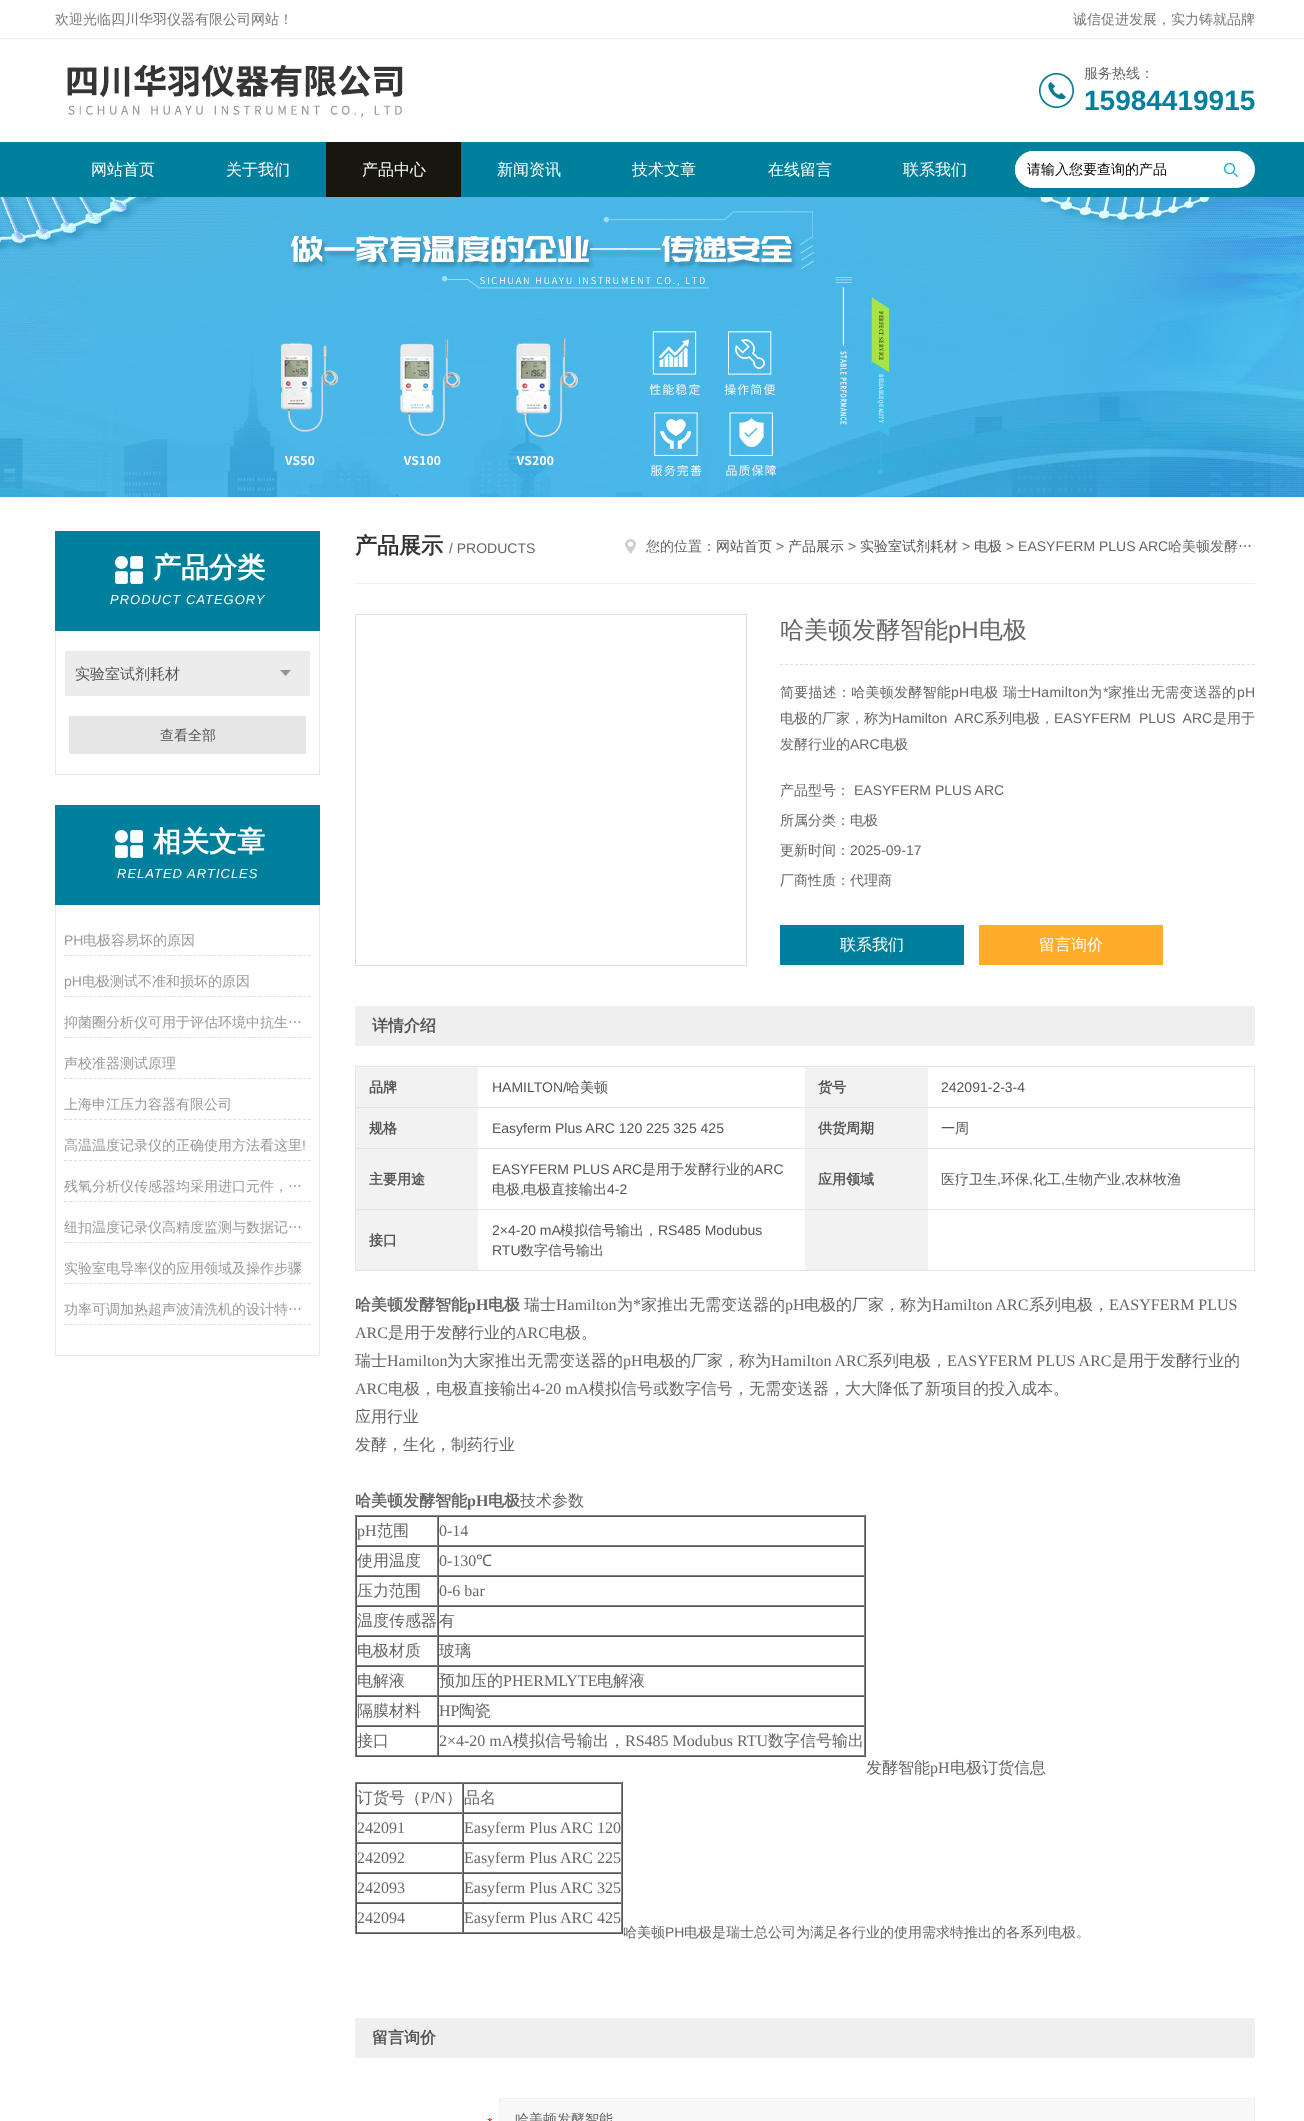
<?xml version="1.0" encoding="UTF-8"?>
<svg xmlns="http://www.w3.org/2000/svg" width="1304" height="2121">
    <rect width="100%" height="100%" fill="#FFFFFF"/>
    <rect x="0" y="38" width="1304" height="1" fill="#EAEAEA"/>
    <text x="55" y="24" font-family="WenQuanYi Zen Hei" font-size="14" font-weight="500" fill="#777777">欢迎光临四川华羽仪器有限公司网站！</text>
    <text x="1073" y="24" font-family="WenQuanYi Zen Hei" font-size="14" font-weight="500" fill="#777777">诚信促进发展，实力铸就品牌</text>
    <image x="67" y="64" width="336" height="54" href="img_01.png"/>
    <image x="1039" y="73" width="35" height="35" href="img_02.png"/>
    <text x="1084" y="78" font-family="WenQuanYi Zen Hei" font-size="14" font-weight="500" fill="#666666">服务热线：</text>
    <text x="1084" y="110" font-family="Liberation Sans" font-size="28" font-weight="700" fill="#00809D">15984419915</text>
    <rect x="0" y="142" width="1304" height="55" fill="#00809D"/>
    <text x="91" y="175" font-family="WenQuanYi Zen Hei" font-size="16" font-weight="500" fill="#FFFFFF">网站首页</text>
    <text x="226" y="175" font-family="WenQuanYi Zen Hei" font-size="16" font-weight="500" fill="#FFFFFF">关于我们</text>
    <rect x="326" y="142" width="135" height="55" fill="#17170F"/>
    <text x="362" y="175" font-family="WenQuanYi Zen Hei" font-size="16" font-weight="500" fill="#FFFFFF">产品中心</text>
    <text x="497" y="175" font-family="WenQuanYi Zen Hei" font-size="16" font-weight="500" fill="#FFFFFF">新闻资讯</text>
    <text x="632" y="175" font-family="WenQuanYi Zen Hei" font-size="16" font-weight="500" fill="#FFFFFF">技术文章</text>
    <text x="768" y="175" font-family="WenQuanYi Zen Hei" font-size="16" font-weight="500" fill="#FFFFFF">在线留言</text>
    <text x="903" y="175" font-family="WenQuanYi Zen Hei" font-size="16" font-weight="500" fill="#FFFFFF">联系我们</text>
    <rect x="1015" y="151" width="240" height="37" rx="18.5" fill="#FFFFFF"/>
    <path d="M 1033.5 151 H 1207 V 188 H 1033.5 C 1023.5 188 1015 179.5 1015 169.5 C 1015 159.5 1023.5 151 1033.5 151 Z" fill="#FFFFFF"/>
    <text x="1027" y="174" font-family="WenQuanYi Zen Hei" font-size="14" font-weight="500" fill="#000000">请输入您要查询的产品</text>
    <image x="1224" y="163" width="14" height="14" href="img_03.png"/>
    <image x="0" y="197" width="1304" height="300" href="img_04.png"/>
    <rect x="55" y="531" width="265" height="100" fill="#00809D"/>
    <image x="115" y="556" width="28" height="28" href="img_05.png"/>
    <text x="153" y="577" font-family="WenQuanYi Zen Hei" font-size="28" font-weight="700" fill="#FFFFFF">产品分类</text>
    <text x="110" y="604" font-family="Liberation Sans" font-size="13" font-style="italic" letter-spacing="1" fill="#FFFFFF">PRODUCT CATEGORY</text>
    <rect x="319" y="631" width="1" height="144" fill="#E8E8E8"/>
    <rect x="55" y="774" width="265" height="1" fill="#E8E8E8"/>
    <rect x="55" y="631" width="1" height="144" fill="#E8E8E8"/>
    <rect x="65" y="651" width="245" height="45" fill="#ECECEC"/>
    <text x="75" y="679" font-family="WenQuanYi Zen Hei" font-size="15" font-weight="500" fill="#555555">实验室试剂耗材</text>
    <image x="280" y="670" width="11" height="6" href="img_06.png"/>
    <rect x="69" y="716" width="237" height="38" fill="#E6E6E6"/>
    <text x="160" y="740" font-family="WenQuanYi Zen Hei" font-size="14" font-weight="500" fill="#555555">查看全部</text>
    <rect x="55" y="805" width="265" height="100" fill="#00809D"/>
    <image x="115" y="830" width="28" height="28" href="img_05.png"/>
    <text x="153" y="851" font-family="WenQuanYi Zen Hei" font-size="28" font-weight="700" fill="#FFFFFF">相关文章</text>
    <text x="117" y="878" font-family="Liberation Sans" font-size="13" font-style="italic" letter-spacing="1" fill="#FFFFFF">RELATED ARTICLES</text>
    <rect x="319" y="905" width="1" height="451" fill="#E8E8E8"/>
    <rect x="55" y="1355" width="265" height="1" fill="#E8E8E8"/>
    <rect x="55" y="905" width="1" height="451" fill="#E8E8E8"/>
    <path d="M 64 955.5 H 311" fill="none" stroke="#DEDEDE" stroke-dasharray="3 1.98"/>
    <text x="64" y="945" font-family="Liberation Sans" font-size="14" fill="#999999">PH</text>
    <text x="83" y="945" font-family="WenQuanYi Zen Hei" font-size="14" font-weight="500" fill="#999999">电极容易坏的原因</text>
    <path d="M 64 996.5 H 311" fill="none" stroke="#DEDEDE" stroke-dasharray="3 1.98"/>
    <text x="64" y="986" font-family="Liberation Sans" font-size="14" fill="#999999">pH</text>
    <text x="82" y="986" font-family="WenQuanYi Zen Hei" font-size="14" font-weight="500" fill="#999999">电极测试不准和损坏的原因</text>
    <path d="M 64 1037.5 H 311" fill="none" stroke="#DEDEDE" stroke-dasharray="3 1.98"/>
    <text x="64" y="1027" font-family="WenQuanYi Zen Hei" font-size="14" font-weight="500" fill="#999999">抑菌圈分析仪可用于评估环境中抗生…</text>
    <path d="M 64 1078.5 H 311" fill="none" stroke="#DEDEDE" stroke-dasharray="3 1.98"/>
    <text x="64" y="1068" font-family="WenQuanYi Zen Hei" font-size="14" font-weight="500" fill="#999999">声校准器测试原理</text>
    <path d="M 64 1119.5 H 311" fill="none" stroke="#DEDEDE" stroke-dasharray="3 1.98"/>
    <text x="64" y="1109" font-family="WenQuanYi Zen Hei" font-size="14" font-weight="500" fill="#999999">上海申江压力容器有限公司</text>
    <path d="M 64 1160.5 H 311" fill="none" stroke="#DEDEDE" stroke-dasharray="3 1.98"/>
    <text x="64" y="1150" font-family="WenQuanYi Zen Hei" font-size="14" font-weight="500" fill="#999999">高温温度记录仪的正确使用方法看这里</text>
    <text x="302" y="1150" font-family="Liberation Sans" font-size="14" fill="#999999">!</text>
    <path d="M 64 1201.5 H 311" fill="none" stroke="#DEDEDE" stroke-dasharray="3 1.98"/>
    <text x="64" y="1191" font-family="WenQuanYi Zen Hei" font-size="14" font-weight="500" fill="#999999">残氧分析仪传感器均采用进口元件，…</text>
    <path d="M 64 1242.5 H 311" fill="none" stroke="#DEDEDE" stroke-dasharray="3 1.98"/>
    <text x="64" y="1232" font-family="WenQuanYi Zen Hei" font-size="14" font-weight="500" fill="#999999">纽扣温度记录仪高精度监测与数据记…</text>
    <path d="M 64 1283.5 H 311" fill="none" stroke="#DEDEDE" stroke-dasharray="3 1.98"/>
    <text x="64" y="1273" font-family="WenQuanYi Zen Hei" font-size="14" font-weight="500" fill="#999999">实验室电导率仪的应用领域及操作步骤</text>
    <path d="M 64 1324.5 H 311" fill="none" stroke="#DEDEDE" stroke-dasharray="3 1.98"/>
    <text x="64" y="1314" font-family="WenQuanYi Zen Hei" font-size="14" font-weight="500" fill="#999999">功率可调加热超声波清洗机的设计特…</text>
    <rect x="355" y="583" width="900" height="1" fill="#F1F1F1"/>
    <text x="355" y="553" font-family="WenQuanYi Zen Hei" font-size="22" font-weight="700" fill="#333333">产品展示</text>
    <text x="449" y="553" font-family="Liberation Sans" font-size="14" fill="#666666">/ PRODUCTS</text>
    <image x="625" y="539" width="11" height="15" href="img_07.png"/>
    <text x="646" y="551" font-family="WenQuanYi Zen Hei" font-size="14" font-weight="500" fill="#666666">您的位置：</text>
    <text x="716" y="551" font-family="WenQuanYi Zen Hei" font-size="14" font-weight="500" fill="#555555">网站首页</text>
    <text x="776" y="551" font-family="Liberation Sans" font-size="14" fill="#666666">&gt;</text>
    <text x="788" y="551" font-family="WenQuanYi Zen Hei" font-size="14" font-weight="500" fill="#555555">产品展示</text>
    <text x="848" y="551" font-family="Liberation Sans" font-size="14" fill="#666666">&gt;</text>
    <text x="860" y="551" font-family="WenQuanYi Zen Hei" font-size="14" font-weight="500" fill="#555555">实验室试剂耗材</text>
    <text x="962" y="551" font-family="Liberation Sans" font-size="14" fill="#666666">&gt;</text>
    <text x="974" y="551" font-family="WenQuanYi Zen Hei" font-size="14" font-weight="500" fill="#555555">电极</text>
    <text x="1006" y="551" font-family="Liberation Sans" font-size="14" fill="#666666">&gt; EASYFERM PLUS ARC</text>
    <text x="1168" y="551" font-family="WenQuanYi Zen Hei" font-size="14" font-weight="500" fill="#666666">哈美顿发酵…</text>
    <rect x="355.5" y="614.5" width="391" height="351" fill="none" stroke="#DDDDDD"/>
    <path d="M 780 664.5 H 1255" fill="none" stroke="#DDDDDD" stroke-dasharray="3 2.02"/>
    <text x="780" y="638" font-family="WenQuanYi Zen Hei" font-size="24" font-weight="500" fill="#666666">哈美顿发酵智能</text>
    <text x="948" y="638" font-family="Liberation Sans" font-size="24" fill="#666666">pH</text>
    <text x="979" y="638" font-family="WenQuanYi Zen Hei" font-size="24" font-weight="500" fill="#666666">电极</text>
    <text x="780" y="697" font-family="WenQuanYi Zen Hei" font-size="14" font-weight="500" letter-spacing="0.25" fill="#666666">简要描述：哈美顿发酵智能</text>
    <text x="951" y="697" font-family="Liberation Sans" font-size="14" letter-spacing="0.25" fill="#666666">pH</text>
    <text x="970" y="697" font-family="WenQuanYi Zen Hei" font-size="14" font-weight="500" letter-spacing="0.25" fill="#666666">电极 瑞士</text>
    <text x="1031" y="697" font-family="Liberation Sans" font-size="14" letter-spacing="0.25" fill="#666666">Hamilton</text>
    <text x="1088" y="697" font-family="WenQuanYi Zen Hei" font-size="14" font-weight="500" letter-spacing="0.25" fill="#666666">为</text>
    <text x="1103" y="697" font-family="Liberation Sans" font-size="14" letter-spacing="0.25" fill="#666666">*</text>
    <text x="1108" y="697" font-family="WenQuanYi Zen Hei" font-size="14" font-weight="500" letter-spacing="0.25" fill="#666666">家推出无需变送器的</text>
    <text x="1237" y="697" font-family="Liberation Sans" font-size="14" letter-spacing="0.25" fill="#666666">pH</text>
    <text x="780" y="723" font-family="WenQuanYi Zen Hei" font-size="14" font-weight="500" fill="#666666">电极的厂家，称为</text>
    <text x="892" y="723" word-spacing="4" font-family="Liberation Sans" font-size="14" fill="#666666">Hamilton ARC</text>
    <text x="984" y="723" font-family="WenQuanYi Zen Hei" font-size="14" font-weight="500" fill="#666666">系列电极，</text>
    <text x="1054" y="723" word-spacing="4" font-family="Liberation Sans" font-size="14" fill="#666666">EASYFERM PLUS ARC</text>
    <text x="1213" y="723" font-family="WenQuanYi Zen Hei" font-size="14" font-weight="500" fill="#666666">是用于</text>
    <text x="780" y="749" font-family="WenQuanYi Zen Hei" font-size="14" font-weight="500" fill="#666666">发酵行业的</text>
    <text x="850" y="749" font-family="Liberation Sans" font-size="14" fill="#666666">ARC</text>
    <text x="880" y="749" font-family="WenQuanYi Zen Hei" font-size="14" font-weight="500" fill="#666666">电极</text>
    <text x="780" y="795" font-family="WenQuanYi Zen Hei" font-size="14" font-weight="500" fill="#666666">产品型号：</text>
    <text x="854" y="795" font-family="Liberation Sans" font-size="14" fill="#666666">EASYFERM PLUS ARC</text>
    <text x="780" y="825" font-family="WenQuanYi Zen Hei" font-size="14" font-weight="500" fill="#666666">所属分类：电极</text>
    <text x="780" y="855" font-family="WenQuanYi Zen Hei" font-size="14" font-weight="500" fill="#666666">更新时间：</text>
    <text x="850" y="855" font-family="Liberation Sans" font-size="14" fill="#666666">2025-09-17</text>
    <text x="780" y="885" font-family="WenQuanYi Zen Hei" font-size="14" font-weight="500" fill="#666666">厂商性质：代理商</text>
    <rect x="780" y="925" width="184" height="40" fill="#00809D"/>
    <text x="840" y="950" font-family="WenQuanYi Zen Hei" font-size="16" font-weight="500" fill="#FFFFFF">联系我们</text>
    <rect x="979" y="925" width="184" height="40" fill="#FFAC2A"/>
    <text x="1039" y="950" font-family="WenQuanYi Zen Hei" font-size="16" font-weight="500" fill="#FFFFFF">留言询价</text>
    <rect x="355" y="1006" width="900" height="40" fill="#EFEFEF"/>
    <text x="372" y="1031" font-family="WenQuanYi Zen Hei" font-size="16" font-weight="700" fill="#555555">详情介绍</text>
    <rect x="355" y="1066" width="900" height="1" fill="#E6E5E5"/>
    <rect x="1254" y="1066" width="1" height="205" fill="#E6E5E5"/>
    <rect x="355" y="1066" width="1" height="205" fill="#E6E5E5"/>
    <rect x="356" y="1067" width="122" height="40" fill="#F2F2F2"/>
    <text x="369" y="1092" font-family="WenQuanYi Zen Hei" font-size="14" font-weight="700" fill="#555555">品牌</text>
    <text x="492" y="1092" font-family="Liberation Sans" font-size="14" fill="#555555">HAMILTON/</text>
    <text x="566" y="1092" font-family="WenQuanYi Zen Hei" font-size="14" font-weight="500" fill="#555555">哈美顿</text>
    <rect x="805" y="1067" width="123" height="40" fill="#F2F2F2"/>
    <text x="818" y="1092" font-family="WenQuanYi Zen Hei" font-size="14" font-weight="700" fill="#555555">货号</text>
    <rect x="355" y="1107" width="900" height="1" fill="#E6E5E5"/>
    <text x="941" y="1092" font-family="Liberation Sans" font-size="14" fill="#555555">242091-2-3-4</text>
    <rect x="356" y="1108" width="122" height="40" fill="#F2F2F2"/>
    <text x="369" y="1133" font-family="WenQuanYi Zen Hei" font-size="14" font-weight="700" fill="#555555">规格</text>
    <text x="492" y="1133" font-family="Liberation Sans" font-size="14" fill="#555555">Easyferm Plus ARC 120 225 325 425</text>
    <rect x="805" y="1108" width="123" height="40" fill="#F2F2F2"/>
    <text x="818" y="1133" font-family="WenQuanYi Zen Hei" font-size="14" font-weight="700" fill="#555555">供货周期</text>
    <rect x="355" y="1148" width="900" height="1" fill="#E6E5E5"/>
    <text x="941" y="1133" font-family="WenQuanYi Zen Hei" font-size="14" font-weight="500" fill="#555555">一周</text>
    <rect x="356" y="1149" width="122" height="60" fill="#F2F2F2"/>
    <text x="369" y="1184" font-family="WenQuanYi Zen Hei" font-size="14" font-weight="700" fill="#555555">主要用途</text>
    <text x="492" y="1174" font-family="Liberation Sans" font-size="14" fill="#555555">EASYFERM PLUS ARC</text>
    <text x="642" y="1174" font-family="WenQuanYi Zen Hei" font-size="14" font-weight="500" fill="#555555">是用于发酵行业的</text>
    <text x="754" y="1174" font-family="Liberation Sans" font-size="14" fill="#555555">ARC</text>
    <text x="492" y="1194" font-family="WenQuanYi Zen Hei" font-size="14" font-weight="500" fill="#555555">电极</text>
    <text x="520" y="1194" font-family="Liberation Sans" font-size="14" fill="#555555">,</text>
    <text x="523" y="1194" font-family="WenQuanYi Zen Hei" font-size="14" font-weight="500" fill="#555555">电极直接输出</text>
    <text x="607" y="1194" font-family="Liberation Sans" font-size="14" fill="#555555">4-2</text>
    <rect x="805" y="1149" width="123" height="60" fill="#F2F2F2"/>
    <text x="818" y="1184" font-family="WenQuanYi Zen Hei" font-size="14" font-weight="700" fill="#555555">应用领域</text>
    <rect x="355" y="1209" width="900" height="1" fill="#E6E5E5"/>
    <text x="941" y="1184" font-family="WenQuanYi Zen Hei" font-size="14" font-weight="500" fill="#555555">医疗卫生</text>
    <text x="997" y="1184" font-family="Liberation Sans" font-size="14" fill="#555555">,</text>
    <text x="1001" y="1184" font-family="WenQuanYi Zen Hei" font-size="14" font-weight="500" fill="#555555">环保</text>
    <text x="1029" y="1184" font-family="Liberation Sans" font-size="14" fill="#555555">,</text>
    <text x="1033" y="1184" font-family="WenQuanYi Zen Hei" font-size="14" font-weight="500" fill="#555555">化工</text>
    <text x="1061" y="1184" font-family="Liberation Sans" font-size="14" fill="#555555">,</text>
    <text x="1065" y="1184" font-family="WenQuanYi Zen Hei" font-size="14" font-weight="500" fill="#555555">生物产业</text>
    <text x="1121" y="1184" font-family="Liberation Sans" font-size="14" fill="#555555">,</text>
    <text x="1125" y="1184" font-family="WenQuanYi Zen Hei" font-size="14" font-weight="500" fill="#555555">农林牧渔</text>
    <rect x="356" y="1210" width="122" height="60" fill="#F2F2F2"/>
    <text x="369" y="1245" font-family="WenQuanYi Zen Hei" font-size="14" font-weight="700" fill="#555555">接口</text>
    <text x="492" y="1235" font-family="Liberation Sans" font-size="14" fill="#555555">2×4-20 mA</text>
    <text x="560" y="1235" font-family="WenQuanYi Zen Hei" font-size="14" font-weight="500" fill="#555555">模拟信号输出，</text>
    <text x="658" y="1235" font-family="Liberation Sans" font-size="14" fill="#555555">RS485 Modubus</text>
    <text x="492" y="1255" font-family="Liberation Sans" font-size="14" fill="#555555">RTU</text>
    <text x="520" y="1255" font-family="WenQuanYi Zen Hei" font-size="14" font-weight="500" fill="#555555">数字信号输出</text>
    <rect x="805" y="1210" width="123" height="60" fill="#F2F2F2"/>
    <rect x="355" y="1270" width="900" height="1" fill="#E6E5E5"/>
    <text x="355" y="1310" font-family="WenQuanYi Zen Hei" font-size="16" font-weight="700" fill="#666666">哈美顿发酵智能</text>
    <text x="467" y="1310" font-family="Liberation Serif" font-size="16" font-weight="700" fill="#666666">pH</text>
    <text x="488" y="1310" font-family="WenQuanYi Zen Hei" font-size="16" font-weight="700" fill="#666666">电极</text>
    <text x="524" y="1310" font-family="WenQuanYi Zen Hei" font-size="16" font-weight="500" fill="#666666">瑞士</text>
    <text x="556" y="1310" font-family="Liberation Serif" font-size="16" fill="#666666">Hamilton</text>
    <text x="617" y="1310" font-family="WenQuanYi Zen Hei" font-size="16" font-weight="500" fill="#666666">为</text>
    <text x="633" y="1310" font-family="Liberation Serif" font-size="16" fill="#666666">*</text>
    <text x="641" y="1310" font-family="WenQuanYi Zen Hei" font-size="16" font-weight="500" fill="#666666">家推出无需变送器的</text>
    <text x="785" y="1310" font-family="Liberation Serif" font-size="16" fill="#666666">pH</text>
    <text x="804" y="1310" font-family="WenQuanYi Zen Hei" font-size="16" font-weight="500" fill="#666666">电极的厂家，称为</text>
    <text x="932" y="1310" font-family="Liberation Serif" font-size="16" fill="#666666">Hamilton ARC</text>
    <text x="1029" y="1310" font-family="WenQuanYi Zen Hei" font-size="16" font-weight="500" fill="#666666">系列电极，</text>
    <text x="1109" y="1310" font-family="Liberation Serif" font-size="16" fill="#666666">EASYFERM PLUS</text>
    <text x="355" y="1338" font-family="Liberation Serif" font-size="16" fill="#666666">ARC</text>
    <text x="388" y="1338" font-family="WenQuanYi Zen Hei" font-size="16" font-weight="500" fill="#666666">是用于发酵行业的</text>
    <text x="516" y="1338" font-family="Liberation Serif" font-size="16" fill="#666666">ARC</text>
    <text x="549" y="1338" font-family="WenQuanYi Zen Hei" font-size="16" font-weight="500" fill="#666666">电极。</text>
    <text x="355" y="1366" font-family="WenQuanYi Zen Hei" font-size="16" font-weight="500" fill="#666666">瑞士</text>
    <text x="387" y="1366" font-family="Liberation Serif" font-size="16" fill="#666666">Hamilton</text>
    <text x="447" y="1366" font-family="WenQuanYi Zen Hei" font-size="16" font-weight="500" fill="#666666">为大家推出无需变送器的</text>
    <text x="623" y="1366" font-family="Liberation Serif" font-size="16" fill="#666666">pH</text>
    <text x="643" y="1366" font-family="WenQuanYi Zen Hei" font-size="16" font-weight="500" fill="#666666">电极的厂家，称为</text>
    <text x="771" y="1366" font-family="Liberation Serif" font-size="16" fill="#666666">Hamilton ARC</text>
    <text x="867" y="1366" font-family="WenQuanYi Zen Hei" font-size="16" font-weight="500" fill="#666666">系列电极，</text>
    <text x="947" y="1366" font-family="Liberation Serif" font-size="16" fill="#666666">EASYFERM PLUS ARC</text>
    <text x="1112" y="1366" font-family="WenQuanYi Zen Hei" font-size="16" font-weight="500" fill="#666666">是用于发酵行业的</text>
    <text x="355" y="1394" font-family="Liberation Serif" font-size="16" fill="#666666">ARC</text>
    <text x="388" y="1394" font-family="WenQuanYi Zen Hei" font-size="16" font-weight="500" fill="#666666">电极，电极直接输出</text>
    <text x="532" y="1394" font-family="Liberation Serif" font-size="16" fill="#666666">4-20 mA</text>
    <text x="589" y="1394" font-family="WenQuanYi Zen Hei" font-size="16" font-weight="500" fill="#666666">模拟信号或数字信号，无需变送器，大大降低了新项目的投入成本。</text>
    <text font-family="WenQuanYi Zen Hei" font-size="16" font-weight="500" fill="#666666">
        <tspan x="355" y="1422">应用行业</tspan>
        <tspan x="355" y="1450">发酵，生化，制药行业</tspan>
    </text>
    <text x="355" y="1506" font-family="WenQuanYi Zen Hei" font-size="16" font-weight="700" fill="#666666">哈美顿发酵智能</text>
    <text x="467" y="1506" font-family="Liberation Serif" font-size="16" font-weight="700" fill="#666666">pH</text>
    <text x="488" y="1506" font-family="WenQuanYi Zen Hei" font-size="16" font-weight="700" fill="#666666">电极</text>
    <text x="520" y="1506" font-family="WenQuanYi Zen Hei" font-size="16" font-weight="500" fill="#666666">技术参数</text>
    <rect x="355" y="1515" width="511" height="1" fill="#808080"/>
    <rect x="865" y="1515" width="1" height="242" fill="#555555"/>
    <rect x="355" y="1756" width="511" height="1" fill="#555555"/>
    <rect x="355" y="1515" width="1" height="242" fill="#808080"/>
    <rect x="356" y="1516" width="509" height="1" fill="#555555"/>
    <rect x="437" y="1516" width="1" height="30" fill="#808080"/>
    <rect x="356" y="1545" width="82" height="1" fill="#808080"/>
    <rect x="356" y="1516" width="1" height="30" fill="#555555"/>
    <text x="357" y="1536" font-family="Liberation Serif" font-size="16" fill="#666666">pH</text>
    <text x="377" y="1536" font-family="WenQuanYi Zen Hei" font-size="16" font-weight="500" fill="#666666">范围</text>
    <rect x="864" y="1516" width="1" height="30" fill="#808080"/>
    <rect x="438" y="1545" width="427" height="1" fill="#808080"/>
    <rect x="438" y="1516" width="1" height="30" fill="#555555"/>
    <text x="439" y="1536" font-family="Liberation Serif" font-size="16" fill="#666666">0-14</text>
    <rect x="356" y="1546" width="509" height="1" fill="#555555"/>
    <rect x="437" y="1546" width="1" height="30" fill="#808080"/>
    <rect x="356" y="1575" width="82" height="1" fill="#808080"/>
    <rect x="356" y="1546" width="1" height="30" fill="#555555"/>
    <text x="357" y="1566" font-family="WenQuanYi Zen Hei" font-size="16" font-weight="500" fill="#666666">使用温度</text>
    <rect x="864" y="1546" width="1" height="30" fill="#808080"/>
    <rect x="438" y="1575" width="427" height="1" fill="#808080"/>
    <rect x="438" y="1546" width="1" height="30" fill="#555555"/>
    <text x="439" y="1566" font-family="Liberation Serif" font-size="16" fill="#666666">0-130</text>
    <text x="476" y="1566" font-family="Noto Sans" font-size="16" fill="#666666">℃</text>
    <rect x="356" y="1576" width="509" height="1" fill="#555555"/>
    <rect x="437" y="1576" width="1" height="30" fill="#808080"/>
    <rect x="356" y="1605" width="82" height="1" fill="#808080"/>
    <rect x="356" y="1576" width="1" height="30" fill="#555555"/>
    <text x="357" y="1596" font-family="WenQuanYi Zen Hei" font-size="16" font-weight="500" fill="#666666">压力范围</text>
    <rect x="864" y="1576" width="1" height="30" fill="#808080"/>
    <rect x="438" y="1605" width="427" height="1" fill="#808080"/>
    <rect x="438" y="1576" width="1" height="30" fill="#555555"/>
    <text x="439" y="1596" font-family="Liberation Serif" font-size="16" fill="#666666">0-6 bar</text>
    <rect x="356" y="1606" width="509" height="1" fill="#555555"/>
    <rect x="437" y="1606" width="1" height="30" fill="#808080"/>
    <rect x="356" y="1635" width="82" height="1" fill="#808080"/>
    <rect x="356" y="1606" width="1" height="30" fill="#555555"/>
    <text x="357" y="1626" font-family="WenQuanYi Zen Hei" font-size="16" font-weight="500" fill="#666666">温度传感器</text>
    <rect x="864" y="1606" width="1" height="30" fill="#808080"/>
    <rect x="438" y="1635" width="427" height="1" fill="#808080"/>
    <rect x="438" y="1606" width="1" height="30" fill="#555555"/>
    <text x="439" y="1626" font-family="WenQuanYi Zen Hei" font-size="16" font-weight="500" fill="#666666">有</text>
    <rect x="356" y="1636" width="509" height="1" fill="#555555"/>
    <rect x="437" y="1636" width="1" height="30" fill="#808080"/>
    <rect x="356" y="1665" width="82" height="1" fill="#808080"/>
    <rect x="356" y="1636" width="1" height="30" fill="#555555"/>
    <text x="357" y="1656" font-family="WenQuanYi Zen Hei" font-size="16" font-weight="500" fill="#666666">电极材质</text>
    <rect x="864" y="1636" width="1" height="30" fill="#808080"/>
    <rect x="438" y="1665" width="427" height="1" fill="#808080"/>
    <rect x="438" y="1636" width="1" height="30" fill="#555555"/>
    <text x="439" y="1656" font-family="WenQuanYi Zen Hei" font-size="16" font-weight="500" fill="#666666">玻璃</text>
    <rect x="356" y="1666" width="509" height="1" fill="#555555"/>
    <rect x="437" y="1666" width="1" height="30" fill="#808080"/>
    <rect x="356" y="1695" width="82" height="1" fill="#808080"/>
    <rect x="356" y="1666" width="1" height="30" fill="#555555"/>
    <text x="357" y="1686" font-family="WenQuanYi Zen Hei" font-size="16" font-weight="500" fill="#666666">电解液</text>
    <rect x="864" y="1666" width="1" height="30" fill="#808080"/>
    <rect x="438" y="1695" width="427" height="1" fill="#808080"/>
    <rect x="438" y="1666" width="1" height="30" fill="#555555"/>
    <text x="439" y="1686" font-family="WenQuanYi Zen Hei" font-size="16" font-weight="500" fill="#666666">预加压的</text>
    <text x="503" y="1686" font-family="Liberation Serif" font-size="16" fill="#666666">PHERMLYTE</text>
    <text x="597" y="1686" font-family="WenQuanYi Zen Hei" font-size="16" font-weight="500" fill="#666666">电解液</text>
    <rect x="356" y="1696" width="509" height="1" fill="#555555"/>
    <rect x="437" y="1696" width="1" height="30" fill="#808080"/>
    <rect x="356" y="1725" width="82" height="1" fill="#808080"/>
    <rect x="356" y="1696" width="1" height="30" fill="#555555"/>
    <text x="357" y="1716" font-family="WenQuanYi Zen Hei" font-size="16" font-weight="500" fill="#666666">隔膜材料</text>
    <rect x="864" y="1696" width="1" height="30" fill="#808080"/>
    <rect x="438" y="1725" width="427" height="1" fill="#808080"/>
    <rect x="438" y="1696" width="1" height="30" fill="#555555"/>
    <text x="439" y="1716" font-family="Liberation Serif" font-size="16" fill="#666666">HP</text>
    <text x="459" y="1716" font-family="WenQuanYi Zen Hei" font-size="16" font-weight="500" fill="#666666">陶瓷</text>
    <rect x="356" y="1726" width="509" height="1" fill="#555555"/>
    <rect x="437" y="1726" width="1" height="30" fill="#808080"/>
    <rect x="356" y="1755" width="82" height="1" fill="#808080"/>
    <rect x="356" y="1726" width="1" height="30" fill="#555555"/>
    <text x="357" y="1746" font-family="WenQuanYi Zen Hei" font-size="16" font-weight="500" fill="#666666">接口</text>
    <rect x="864" y="1726" width="1" height="30" fill="#808080"/>
    <rect x="438" y="1755" width="427" height="1" fill="#808080"/>
    <rect x="438" y="1726" width="1" height="30" fill="#555555"/>
    <text x="439" y="1746" font-family="Liberation Serif" font-size="16" fill="#666666">2×4-20 mA</text>
    <text x="513" y="1746" font-family="WenQuanYi Zen Hei" font-size="16" font-weight="500" fill="#666666">模拟信号输出，</text>
    <text x="625" y="1746" font-family="Liberation Serif" font-size="16" fill="#666666">RS485 Modubus RTU</text>
    <text x="768" y="1746" font-family="WenQuanYi Zen Hei" font-size="16" font-weight="500" fill="#666666">数字信号输出</text>
    <text x="866" y="1773" font-family="WenQuanYi Zen Hei" font-size="16" font-weight="500" fill="#666666">发酵智能</text>
    <text x="930" y="1773" font-family="Liberation Serif" font-size="16" fill="#666666">pH</text>
    <text x="950" y="1773" font-family="WenQuanYi Zen Hei" font-size="16" font-weight="500" fill="#666666">电极订货信息</text>
    <rect x="355" y="1782" width="268" height="1" fill="#808080"/>
    <rect x="622" y="1782" width="1" height="152" fill="#555555"/>
    <rect x="355" y="1933" width="268" height="1" fill="#555555"/>
    <rect x="355" y="1782" width="1" height="152" fill="#808080"/>
    <rect x="356" y="1783" width="266" height="1" fill="#555555"/>
    <rect x="462" y="1783" width="1" height="30" fill="#808080"/>
    <rect x="356" y="1812" width="107" height="1" fill="#808080"/>
    <rect x="356" y="1783" width="1" height="30" fill="#555555"/>
    <text x="357" y="1803" font-family="WenQuanYi Zen Hei" font-size="16" font-weight="500" fill="#666666">订货号（</text>
    <text x="421" y="1803" font-family="Liberation Serif" font-size="16" fill="#666666">P/N</text>
    <text x="446" y="1803" font-family="WenQuanYi Zen Hei" font-size="16" font-weight="500" fill="#666666">）</text>
    <rect x="621" y="1783" width="1" height="30" fill="#808080"/>
    <rect x="463" y="1812" width="159" height="1" fill="#808080"/>
    <rect x="463" y="1783" width="1" height="30" fill="#555555"/>
    <text x="464" y="1803" font-family="WenQuanYi Zen Hei" font-size="16" font-weight="500" fill="#666666">品名</text>
    <rect x="356" y="1813" width="266" height="1" fill="#555555"/>
    <rect x="462" y="1813" width="1" height="30" fill="#808080"/>
    <rect x="356" y="1842" width="107" height="1" fill="#808080"/>
    <rect x="356" y="1813" width="1" height="30" fill="#555555"/>
    <text x="357" y="1833" font-family="Liberation Serif" font-size="16" fill="#666666">242091</text>
    <rect x="621" y="1813" width="1" height="30" fill="#808080"/>
    <rect x="463" y="1842" width="159" height="1" fill="#808080"/>
    <rect x="463" y="1813" width="1" height="30" fill="#555555"/>
    <text x="464" y="1833" font-family="Liberation Serif" font-size="16" fill="#666666">Easyferm Plus ARC 120</text>
    <rect x="356" y="1843" width="266" height="1" fill="#555555"/>
    <rect x="462" y="1843" width="1" height="30" fill="#808080"/>
    <rect x="356" y="1872" width="107" height="1" fill="#808080"/>
    <rect x="356" y="1843" width="1" height="30" fill="#555555"/>
    <text x="357" y="1863" font-family="Liberation Serif" font-size="16" fill="#666666">242092</text>
    <rect x="621" y="1843" width="1" height="30" fill="#808080"/>
    <rect x="463" y="1872" width="159" height="1" fill="#808080"/>
    <rect x="463" y="1843" width="1" height="30" fill="#555555"/>
    <text x="464" y="1863" font-family="Liberation Serif" font-size="16" fill="#666666">Easyferm Plus ARC 225</text>
    <rect x="356" y="1873" width="266" height="1" fill="#555555"/>
    <rect x="462" y="1873" width="1" height="30" fill="#808080"/>
    <rect x="356" y="1902" width="107" height="1" fill="#808080"/>
    <rect x="356" y="1873" width="1" height="30" fill="#555555"/>
    <text x="357" y="1893" font-family="Liberation Serif" font-size="16" fill="#666666">242093</text>
    <rect x="621" y="1873" width="1" height="30" fill="#808080"/>
    <rect x="463" y="1902" width="159" height="1" fill="#808080"/>
    <rect x="463" y="1873" width="1" height="30" fill="#555555"/>
    <text x="464" y="1893" font-family="Liberation Serif" font-size="16" fill="#666666">Easyferm Plus ARC 325</text>
    <rect x="356" y="1903" width="266" height="1" fill="#555555"/>
    <rect x="462" y="1903" width="1" height="30" fill="#808080"/>
    <rect x="356" y="1932" width="107" height="1" fill="#808080"/>
    <rect x="356" y="1903" width="1" height="30" fill="#555555"/>
    <text x="357" y="1923" font-family="Liberation Serif" font-size="16" fill="#666666">242094</text>
    <rect x="621" y="1903" width="1" height="30" fill="#808080"/>
    <rect x="463" y="1932" width="159" height="1" fill="#808080"/>
    <rect x="463" y="1903" width="1" height="30" fill="#555555"/>
    <text x="464" y="1923" font-family="Liberation Serif" font-size="16" fill="#666666">Easyferm Plus ARC 425</text>
    <text x="623" y="1937" font-family="WenQuanYi Zen Hei" font-size="14" font-weight="500" fill="#666666">哈美顿</text>
    <text x="665" y="1937" font-family="Liberation Sans" font-size="14" fill="#666666">PH</text>
    <text x="684" y="1937" font-family="WenQuanYi Zen Hei" font-size="14" font-weight="500" fill="#666666">电极是瑞士总公司为满足各行业的使用需求特推出的各系列电极。</text>
    <rect x="355" y="2018" width="900" height="40" fill="#EFEFEF"/>
    <text x="372" y="2043" font-family="WenQuanYi Zen Hei" font-size="16" font-weight="700" fill="#555555">留言询价</text>
    <image x="487" y="2118" width="5" height="3" href="img_08.png"/>
    <rect x="499.5" y="2098.5" width="755" height="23" fill="#F8F8F8" stroke="#F1F1F1"/>
    <text x="515" y="2124" font-family="WenQuanYi Zen Hei" font-size="14" font-weight="500" fill="#666666">哈美顿发酵智能</text>
</svg>
